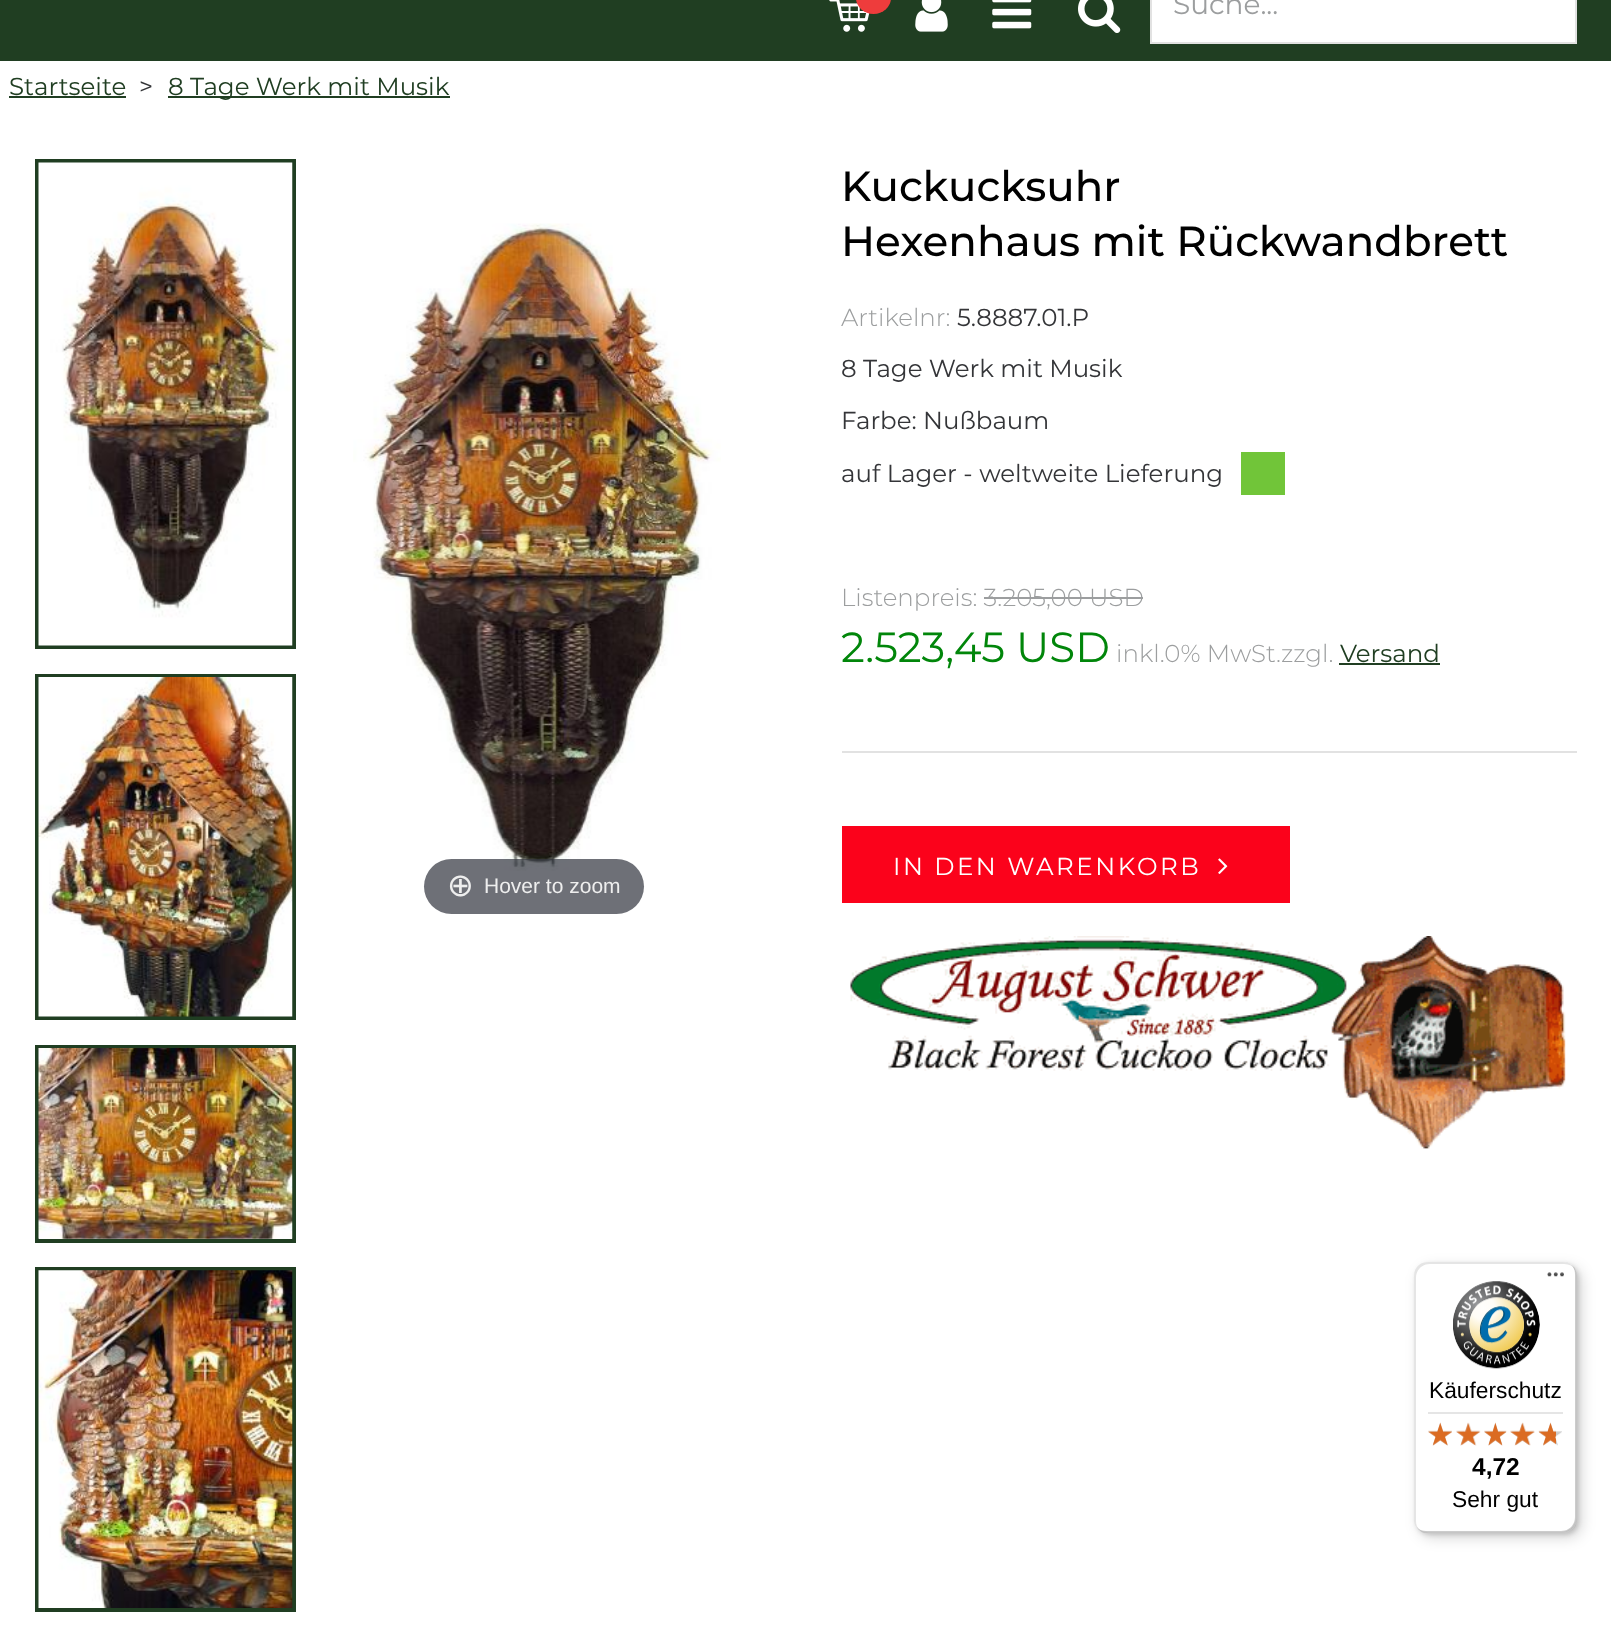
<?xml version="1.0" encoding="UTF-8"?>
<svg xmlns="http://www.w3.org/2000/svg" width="1611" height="1626">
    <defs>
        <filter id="blur1" x="-50%" y="-200%" width="200%" height="500%"><feGaussianBlur stdDeviation="7"/></filter>
        <filter id="blur2" x="-50%" y="-200%" width="200%" height="500%"><feGaussianBlur stdDeviation="2"/></filter>
    </defs>
    <rect width="100%" height="100%" fill="#FFFFFF"/>
    <rect x="0" y="0" width="1611" height="61" fill="#203E22"/>
    <image x="829" y="0" width="41" height="32" href="img_01.png"/>
    <rect x="856" y="-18" width="35" height="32" rx="17.5" fill="#EE3C3C"/>
    <image x="915" y="0" width="33" height="32" href="img_02.png"/>
    <image x="992" y="0" width="40" height="29" href="img_03.png"/>
    <image x="1078" y="0" width="43" height="33" href="img_04.png"/>
    <rect x="1151" y="-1" width="425" height="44" fill="#FFFFFF" stroke="#E2E2E2" stroke-width="2"/>
    <text x="1173" y="14" font-family="Montserrat" font-size="28" font-weight="100" fill="#9C9E9F">Suche...</text>
    <text x="9" y="95" font-family="Montserrat" font-size="24.5" font-weight="100" fill="#203E22">Startseite</text>
    <rect x="9" y="96" width="117" height="2" fill="#203E22"/>
    <text x="139" y="95" font-family="Montserrat" font-size="24.5" font-weight="100" fill="#343538">&gt;</text>
    <rect x="168" y="96" width="282" height="2" fill="#203E22"/>
    <text x="168" y="95" font-family="Montserrat" font-size="24.5" font-weight="100" fill="#203E22">8 Tage Werk mit Musik</text>
    <text font-family="'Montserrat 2'" font-size="42" font-weight="100" fill="#000000">
        <tspan x="841" y="201">Kuckucksuhr</tspan>
        <tspan x="841" y="256">Hexenhaus mit Rückwandbrett</tspan>
    </text>
    <text x="841" y="326" font-family="'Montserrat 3'" font-size="24.5" font-weight="100" fill="#9C9E9F">Artikelnr:</text>
    <text x="957" y="326" font-family="Montserrat" font-size="24.5" font-weight="100" fill="#343538">5.8887.01.P</text>
    <text x="841" y="377" font-family="Montserrat" font-size="24.5" font-weight="100" fill="#343538">8 Tage Werk mit Musik</text>
    <text x="841" y="429" font-family="Montserrat" font-size="24.5" font-weight="100" fill="#343538">Farbe: Nußbaum</text>
    <text x="841" y="482" font-family="Montserrat" font-size="24.5" font-weight="100" fill="#343538">auf Lager - weltweite Lieferung</text>
    <rect x="1241" y="452" width="44" height="43" fill="#71C539"/>
    <rect x="842" y="751" width="735" height="2" fill="#E2E2E2"/>
    <text x="841" y="606" font-family="'Montserrat 3'" font-size="24.5" font-weight="100" fill="#9C9E9F">Listenpreis: 3.205,00 USD</text>
    <rect x="984" y="597" width="159" height="2" fill="#9C9E9F"/>
    <text x="841" y="662" font-family="Montserrat" font-size="42" font-weight="100" fill="#01860A">2.523,45 USD</text>
    <text x="1116" y="662" font-family="'Montserrat 3'" font-size="24.5" font-weight="100" fill="#9C9E9F">inkl.0% MwSt.zzgl.</text>
    <text x="1340" y="662" font-family="Montserrat" font-size="24.5" font-weight="100" fill="#203E22">Versand</text>
    <rect x="1339" y="663" width="101" height="2" fill="#203E22"/>
    <rect x="842" y="826" width="448" height="77" fill="#FB021B"/>
    <text x="893" y="875" font-family="Montserrat" font-size="24.5" font-weight="100" letter-spacing="2.5" fill="#FFFFFF">IN DEN WARENKORB</text>
    <image x="1218" y="858" width="10" height="16" href="img_05.png"/>
    <image x="850" y="936" width="716" height="213" href="img_06.png"/>
    <rect x="37" y="161" width="257" height="486" fill="none" stroke="#203E22" stroke-width="4"/>
    <image x="38" y="162" width="255" height="484" href="img_07.png"/>
    <rect x="37" y="676" width="257" height="342" fill="none" stroke="#203E22" stroke-width="4"/>
    <image x="38" y="677" width="255" height="340" href="img_08.png"/>
    <rect x="37" y="1047" width="257" height="194" fill="none" stroke="#203E22" stroke-width="4"/>
    <image x="38" y="1048" width="255" height="191" href="img_09.png"/>
    <rect x="37" y="1269" width="257" height="341" fill="none" stroke="#203E22" stroke-width="4"/>
    <image x="38" y="1270" width="255" height="338" href="img_10.png"/>
    <image x="353" y="223" width="368" height="648" href="img_11.png"/>
    <rect x="424" y="859" width="220" height="55" rx="27.5" fill="#31333D" fill-opacity="0.7"/>
    <text x="447" y="896" font-family="DejaVu Sans" font-size="32" fill="#EEEEEE">⊕</text>
    <text x="484" y="893" font-family="Liberation Sans" font-size="21" fill="#EEEEEE">Hover to zoom</text>
    <rect x="1419" y="1267" width="163" height="271" rx="14" fill="#000000" fill-opacity="0.15" filter="url(#blur1)"/>
    <rect x="1416" y="1264" width="163" height="271" rx="14" fill="#000000" fill-opacity="0.15" filter="url(#blur2)"/>
    <rect x="1414" y="1262" width="163" height="271" rx="14" fill="#FFFFFF"/>
    <path d="M 1430 1264 H 1564 C 1569 1264 1573 1266 1576 1270 C 1573 1265 1569 1262 1563 1262 H 1428 C 1420 1262 1414 1268 1414 1276 V 1519 C 1414 1524 1416 1528 1420 1530 C 1417 1528 1416 1524 1416 1521 V 1278 C 1416 1270 1422 1264 1430 1264 Z" fill="#000000" fill-opacity="0.1"/>
    <path d="M 1417 1527 C 1419 1531 1423 1533 1428 1533 H 1563 C 1571 1533 1577 1527 1577 1519 V 1276 C 1577 1272 1575 1268 1572 1266 C 1574 1268 1575 1271 1575 1274 V 1517 C 1575 1525 1569 1531 1561 1531 H 1426 C 1423 1531 1419 1530 1417 1527 Z" fill="#000000" fill-opacity="0.2"/>
    <path d="M 1419 1529 C 1421 1532 1424 1533 1428 1533 H 1563 C 1571 1533 1577 1527 1577 1519 V 1276 C 1577 1271 1575 1267 1571 1265 C 1574 1267 1576 1271 1576 1275 V 1518 C 1576 1526 1569 1532 1562 1532 H 1427 C 1424 1532 1421 1531 1419 1529 Z" fill="#323232" fill-opacity="0.2"/>
    <path d="M 1419 1529 C 1421 1532 1424 1533 1428 1533 H 1563 C 1571 1533 1577 1527 1577 1519 V 1276 C 1577 1272 1576 1269 1573 1267 C 1575 1269 1576 1272 1576 1275 V 1518 C 1576 1526 1570 1532 1562 1532 H 1427 C 1424 1532 1421 1531 1419 1529 Z" fill="#FFFFFF" fill-opacity="0.3"/>
    <image x="1547" y="1272" width="17" height="5" href="img_12.png"/>
    <image x="1453" y="1281" width="87" height="88" href="img_13.png"/>
    <text x="1429" y="1398" font-family="Liberation Sans" font-size="22.75" fill="#000000">Käuferschutz</text>
    <rect x="1428" y="1412" width="135" height="2" fill="#E5E5E5"/>
    <image x="1428" y="1423" width="24" height="23" href="img_19.png"/>
    <image x="1428" y="1422" width="24" height="24" href="img_14.png"/>
    <image x="1456" y="1423" width="24" height="23" href="img_20.png"/>
    <image x="1456" y="1422" width="25" height="24" href="img_15.png"/>
    <image x="1484" y="1423" width="23" height="23" href="img_21.png"/>
    <image x="1484" y="1422" width="23" height="24" href="img_16.png"/>
    <image x="1510" y="1423" width="25" height="22" href="img_22.png"/>
    <image x="1510" y="1422" width="25" height="24" href="img_17.png"/>
    <image x="1539" y="1423" width="23" height="23" href="img_23.png"/>
    <image x="1538" y="1422" width="18" height="24" href="img_18.png"/>
    <text x="1472" y="1475" font-family="Liberation Sans" font-size="24.5" font-weight="700" fill="#000000">4,72</text>
    <text x="1452" y="1507" font-family="Liberation Sans" font-size="22.75" fill="#000000">Sehr gut</text>
</svg>
